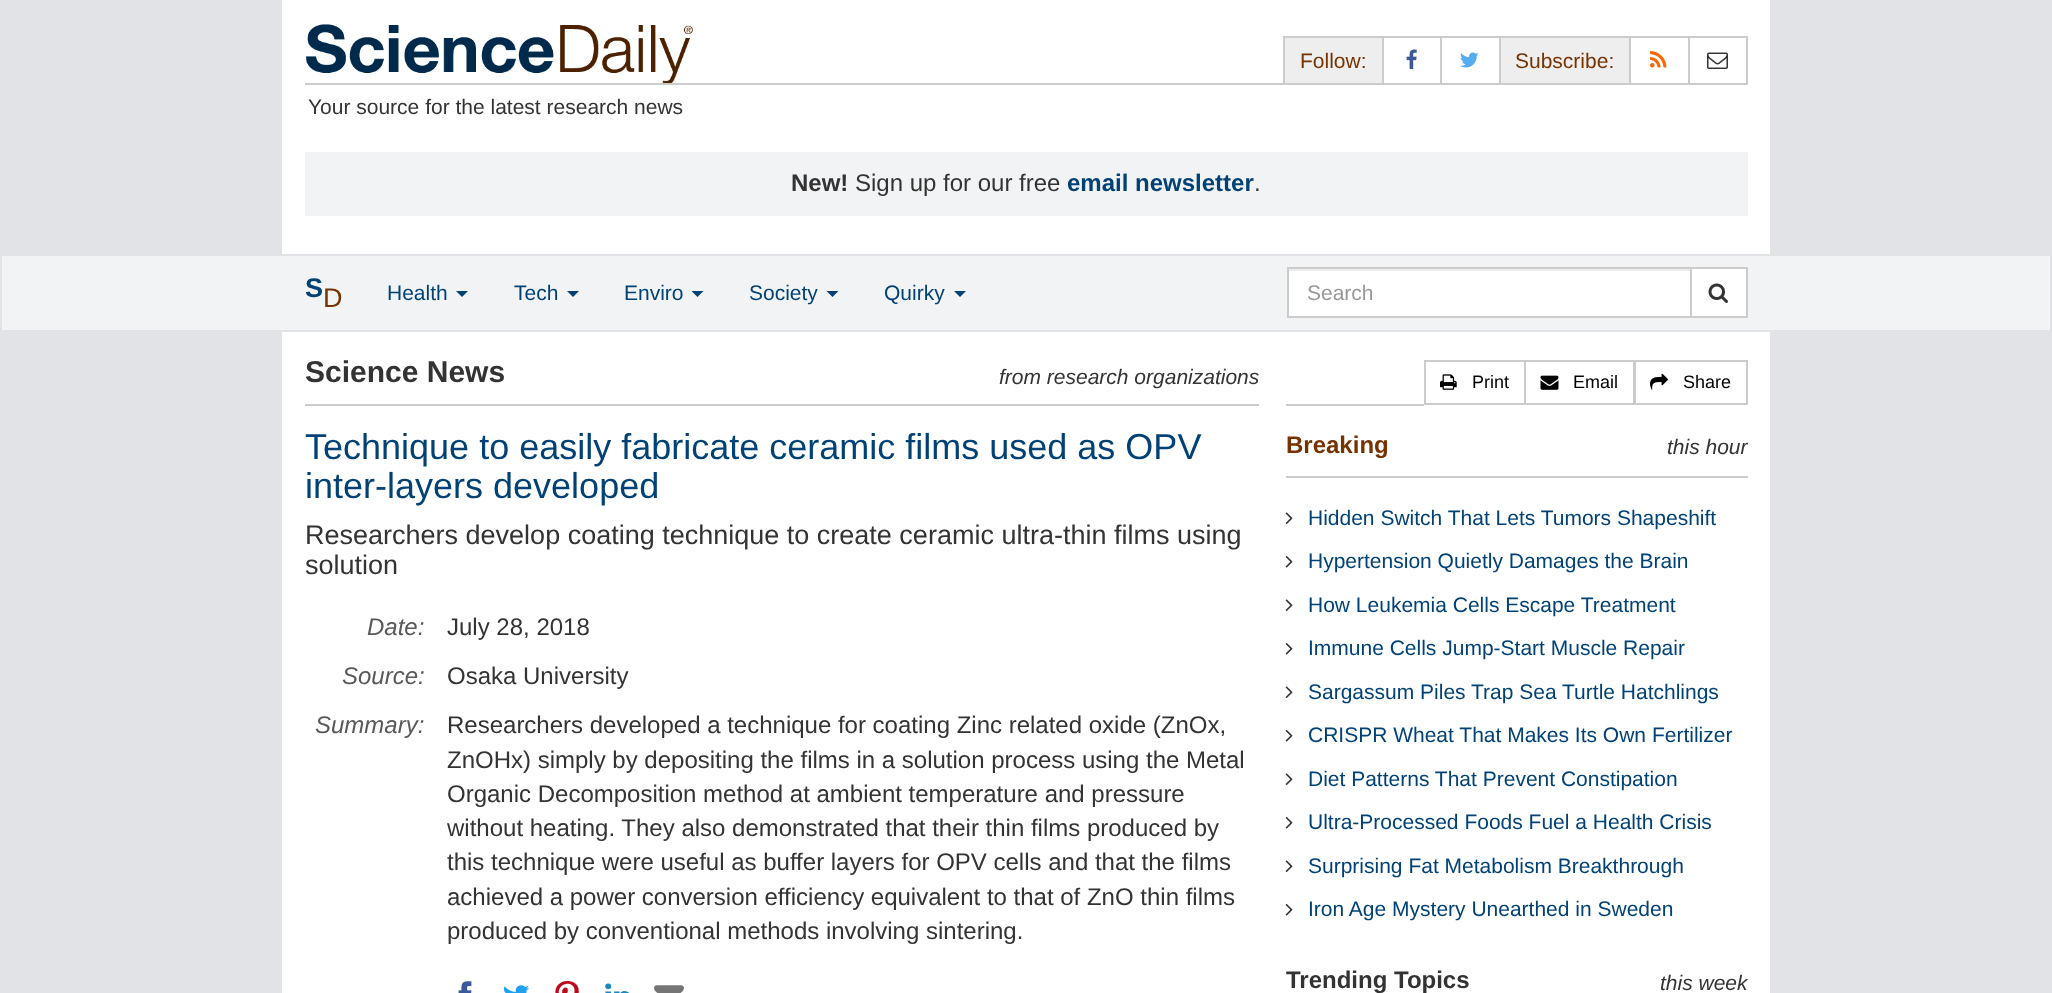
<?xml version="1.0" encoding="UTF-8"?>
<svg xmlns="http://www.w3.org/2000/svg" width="2052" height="993">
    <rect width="100%" height="100%" fill="#E2E3E6"/>
    <rect x="282" y="0" width="1488" height="254" fill="#FFFFFF"/>
    <rect x="1285" y="38" width="97" height="45" fill="#EEEEEE"/>
    <rect x="1283" y="36" width="465" height="2" fill="#CCCCCC"/>
    <rect x="1283" y="36" width="2" height="47" fill="#CCCCCC"/>
    <text x="1300" y="68" font-family="Liberation Sans" font-size="21" fill="#763300">Follow:</text>
    <rect x="1382" y="36" width="2" height="47" fill="#CCCCCC"/>
    <image x="1406" y="49" width="11" height="20" href="img_01.png"/>
    <rect x="1440" y="36" width="2" height="47" fill="#CCCCCC"/>
    <image x="1460" y="52" width="19" height="16" href="img_02.png"/>
    <rect x="1501" y="38" width="128" height="45" fill="#EEEEEE"/>
    <rect x="1499" y="36" width="2" height="47" fill="#CCCCCC"/>
    <text x="1515" y="68" font-family="Liberation Sans" font-size="21" fill="#763300">Subscribe:</text>
    <rect x="1629" y="36" width="2" height="47" fill="#CCCCCC"/>
    <image x="1650" y="51" width="17" height="17" href="img_03.png"/>
    <rect x="1746" y="36" width="2" height="47" fill="#CCCCCC"/>
    <rect x="1688" y="36" width="2" height="47" fill="#CCCCCC"/>
    <image x="1707" y="52" width="21" height="17" href="img_04.png"/>
    <image x="306" y="24" width="387" height="59" href="img_05.png"/>
    <rect x="305" y="83" width="1443" height="2" fill="#CCCCCC"/>
    <text x="308" y="114" font-family="Liberation Sans" font-size="21" fill="#333333">Your source for the latest research news</text>
    <rect x="305" y="152" width="1443" height="64" fill="#F2F3F4"/>
    <text x="791" y="191" font-family="Liberation Sans" font-size="24" font-weight="700" fill="#333333">New!</text>
    <text x="855" y="191" font-family="Liberation Sans" font-size="24" fill="#333333">Sign up for our free</text>
    <text x="1067" y="191" font-family="Liberation Sans" font-size="24" font-weight="700" fill="#004276">email newsletter</text>
    <text x="1254" y="191" font-family="Liberation Sans" font-size="24" fill="#333333">.</text>
    <rect x="2" y="256" width="2048" height="74" fill="#F2F3F4"/>
    <text x="305" y="297" font-family="Liberation Sans" font-size="27" font-weight="700" fill="#004276">S</text>
    <text x="323" y="307" font-family="Liberation Sans" font-size="27" fill="#763300">D</text>
    <text x="387" y="300" font-family="Liberation Sans" font-size="21" fill="#004276">Health</text>
    <path d="M 456 291 H 468 L 462 297 Z" fill="#004276"/>
    <text x="514" y="300" font-family="Liberation Sans" font-size="21" fill="#004276">Tech</text>
    <path d="M 567 291 H 579 L 573 297 Z" fill="#004276"/>
    <text x="624" y="300" font-family="Liberation Sans" font-size="21" fill="#004276">Enviro</text>
    <path d="M 691.5 291 H 703.5 L 697.5 297 Z" fill="#004276"/>
    <text x="749" y="300" font-family="Liberation Sans" font-size="21" fill="#004276">Society</text>
    <path d="M 826.5 291 H 838.5 L 832.5 297 Z" fill="#004276"/>
    <text x="884" y="300" font-family="Liberation Sans" font-size="21" fill="#004276">Quirky</text>
    <path d="M 954 291 H 966 L 960 297 Z" fill="#004276"/>
    <rect x="1692" y="269" width="54" height="47" fill="#FFFFFF"/>
    <rect x="1690" y="268" width="57" height="49" fill="none" stroke="#CCCCCC" stroke-width="2"/>
    <rect x="1289" y="271" width="401" height="45" fill="#FFFFFF"/>
    <rect x="1289" y="269" width="402" height="2" fill="#ECECEC"/>
    <rect x="1288" y="268" width="403" height="49" fill="none" stroke="#CCCCCC" stroke-width="2"/>
    <text x="1307" y="300" font-family="Liberation Sans" font-size="21" fill="#999999">Search</text>
    <image x="1708" y="283" width="20" height="20" href="img_06.png"/>
    <rect x="282" y="332" width="1488" height="661" fill="#FFFFFF"/>
    <text x="305" y="382" font-family="Liberation Sans" font-size="30" font-weight="700" fill="#333333">Science News</text>
    <text x="999" y="384" font-family="Liberation Sans" font-size="21" font-style="italic" fill="#333333">from research organizations</text>
    <rect x="305" y="404" width="954" height="2" fill="#CCCCCC"/>
    <text font-family="Liberation Sans" font-size="36" fill="#004276">
        <tspan x="305" y="459">Technique to easily fabricate ceramic films used as OPV</tspan>
        <tspan x="305" y="498">inter-layers developed</tspan>
    </text>
    <text font-family="Liberation Sans" font-size="27" fill="#333333">
        <tspan x="305" y="544">Researchers develop coating technique to create ceramic ultra-thin films using</tspan>
        <tspan x="305" y="574">solution</tspan>
    </text>
    <text x="367" y="635" font-family="Liberation Sans" font-size="24" font-style="italic" fill="#595959">Date:</text>
    <text x="447" y="635" font-family="Liberation Sans" font-size="24" fill="#333333">July 28, 2018</text>
    <text x="342" y="684" font-family="Liberation Sans" font-size="24" font-style="italic" fill="#595959">Source:</text>
    <text x="447" y="684" font-family="Liberation Sans" font-size="24" fill="#333333">Osaka University</text>
    <text x="315" y="733" font-family="Liberation Sans" font-size="24" font-style="italic" fill="#595959">Summary:</text>
    <text font-family="Liberation Sans" font-size="24" fill="#333333">
        <tspan x="447" y="733">Researchers developed a technique for coating Zinc related oxide (ZnOx,</tspan>
        <tspan x="447" y="768">ZnOHx) simply by depositing the films in a solution process using the Metal</tspan>
        <tspan x="447" y="802">Organic Decomposition method at ambient temperature and pressure</tspan>
        <tspan x="447" y="836">without heating. They also demonstrated that their thin films produced by</tspan>
        <tspan x="447" y="870">this technique were useful as buffer layers for OPV cells and that the films</tspan>
        <tspan x="447" y="905">achieved a power conversion efficiency equivalent to that of ZnO thin films</tspan>
        <tspan x="447" y="939">produced by conventional methods involving sintering.</tspan>
    </text>
    <image x="458" y="981" width="14" height="12" href="img_07.png"/>
    <image x="503" y="985" width="26" height="8" href="img_08.png"/>
    <image x="555" y="981" width="24" height="12" href="img_09.png"/>
    <image x="605" y="983" width="24" height="10" href="img_10.png"/>
    <image x="654" y="985" width="30" height="8" href="img_11.png"/>
    <rect x="1425" y="361" width="100" height="43" fill="none" stroke="#CCCCCC" stroke-width="2"/>
    <image x="1440" y="374" width="17" height="16" href="img_12.png"/>
    <text x="1472" y="388" font-family="Liberation Sans" font-size="18" fill="#000000">Print</text>
    <rect x="1525" y="361" width="109" height="43" fill="none" stroke="#CCCCCC" stroke-width="2"/>
    <image x="1540" y="375" width="19" height="15" href="img_13.png"/>
    <text x="1573" y="388" font-family="Liberation Sans" font-size="18" fill="#000000">Email</text>
    <rect x="1635" y="361" width="112" height="43" fill="none" stroke="#CCCCCC" stroke-width="2"/>
    <image x="1650" y="373" width="18" height="17" href="img_14.png"/>
    <text x="1683" y="388" font-family="Liberation Sans" font-size="18" fill="#000000">Share</text>
    <rect x="1286" y="404" width="138" height="2" fill="#CCCCCC"/>
    <text x="1286" y="453" font-family="Liberation Sans" font-size="24" font-weight="700" fill="#763300">Breaking</text>
    <text x="1667" y="454" font-family="Liberation Sans" font-size="21" font-style="italic" fill="#333333">this hour</text>
    <rect x="1286" y="476" width="462" height="2" fill="#CCCCCC"/>
    <image x="1285" y="512" width="8" height="12" href="img_15.png"/>
    <text x="1308" y="525" font-family="Liberation Sans" font-size="21" fill="#004276">Hidden Switch That Lets Tumors Shapeshift</text>
    <image x="1285" y="556" width="8" height="12" href="img_16.png"/>
    <text x="1308" y="568" font-family="Liberation Sans" font-size="21" fill="#004276">Hypertension Quietly Damages the Brain</text>
    <image x="1285" y="599" width="8" height="12" href="img_15.png"/>
    <text x="1308" y="612" font-family="Liberation Sans" font-size="21" fill="#004276">How Leukemia Cells Escape Treatment</text>
    <image x="1285" y="643" width="8" height="12" href="img_16.png"/>
    <text x="1308" y="655" font-family="Liberation Sans" font-size="21" fill="#004276">Immune Cells Jump-Start Muscle Repair</text>
    <image x="1285" y="686" width="8" height="12" href="img_15.png"/>
    <text x="1308" y="699" font-family="Liberation Sans" font-size="21" fill="#004276">Sargassum Piles Trap Sea Turtle Hatchlings</text>
    <image x="1285" y="730" width="8" height="12" href="img_16.png"/>
    <text x="1308" y="742" font-family="Liberation Sans" font-size="21" fill="#004276">CRISPR Wheat That Makes Its Own Fertilizer</text>
    <image x="1285" y="773" width="8" height="12" href="img_15.png"/>
    <text x="1308" y="786" font-family="Liberation Sans" font-size="21" fill="#004276">Diet Patterns That Prevent Constipation</text>
    <image x="1285" y="817" width="8" height="12" href="img_16.png"/>
    <text x="1308" y="829" font-family="Liberation Sans" font-size="21" fill="#004276">Ultra-Processed Foods Fuel a Health Crisis</text>
    <image x="1285" y="860" width="8" height="12" href="img_15.png"/>
    <text x="1308" y="873" font-family="Liberation Sans" font-size="21" fill="#004276">Surprising Fat Metabolism Breakthrough</text>
    <image x="1285" y="904" width="8" height="12" href="img_16.png"/>
    <text x="1308" y="916" font-family="Liberation Sans" font-size="21" fill="#004276">Iron Age Mystery Unearthed in Sweden</text>
    <text x="1286" y="988" font-family="Liberation Sans" font-size="24" font-weight="700" fill="#333333">Trending Topics</text>
    <text x="1660" y="990" font-family="Liberation Sans" font-size="21" font-style="italic" fill="#333333">this week</text>
</svg>
